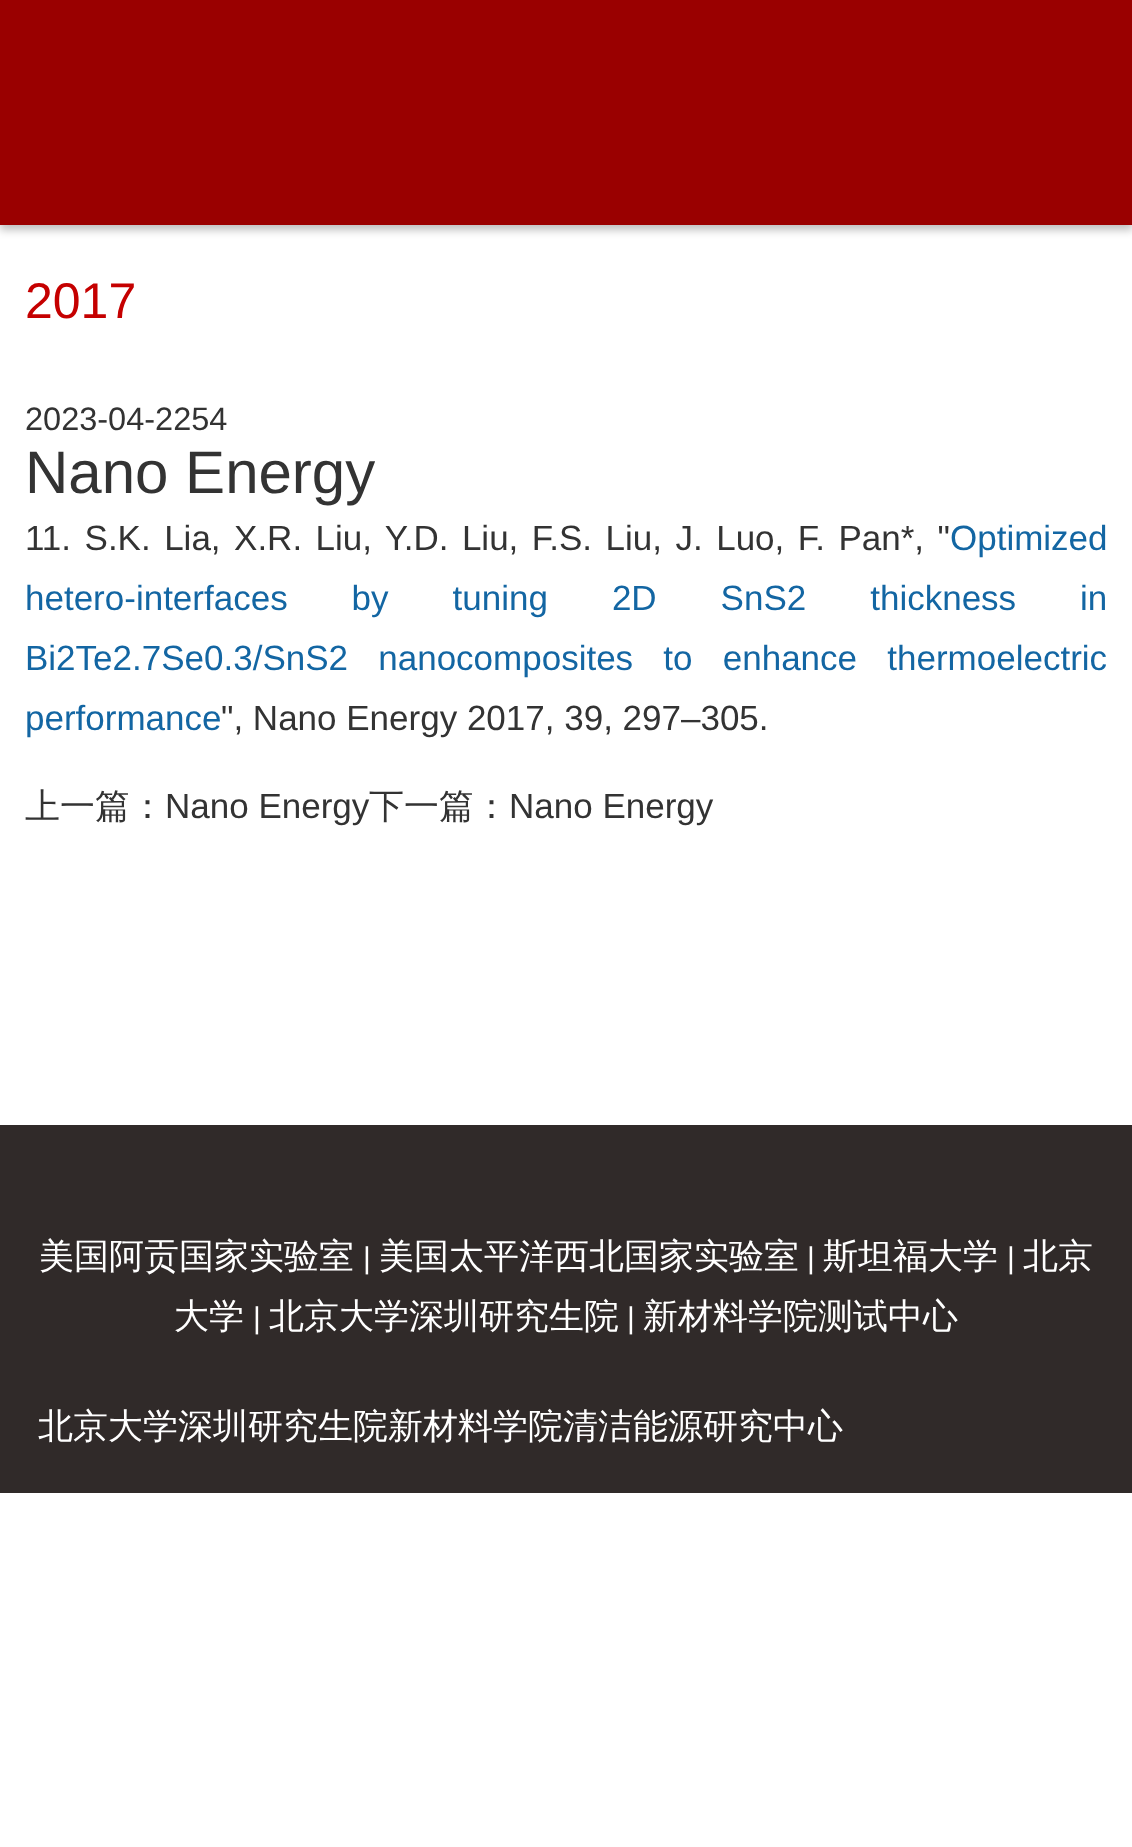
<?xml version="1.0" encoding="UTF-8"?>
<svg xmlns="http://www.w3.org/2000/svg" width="1132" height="1847">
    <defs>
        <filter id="blur1" x="-50%" y="-200%" width="200%" height="500%"><feGaussianBlur stdDeviation="4"/></filter>
    </defs>
    <rect width="100%" height="100%" fill="#FFFFFF"/>
    <rect x="0" y="5" width="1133" height="225" fill="#000000" fill-opacity="0.25" filter="url(#blur1)"/>
    <rect x="0" y="0" width="1132" height="225" fill="#9A0000"/>
    <text x="25" y="318" font-family="Liberation Sans" font-size="50" fill="#C50000">2017</text>
    <text x="25" y="430" font-family="Liberation Sans" font-size="32.5" fill="#333333">2023-04-2254</text>
    <text x="25" y="493" font-family="Liberation Sans" font-size="60" fill="#333333">Nano Energy</text>
    <text x="25" y="550" word-spacing="3.75" font-family="Liberation Sans" font-size="35" fill="#333333">11. S.K. Lia, X.R. Liu, Y.D. Liu, F.S. Liu, J. Luo, F. Pan*, "</text>
    <text x="950" y="550" font-family="Liberation Sans" font-size="35" fill="#1366A3">Optimized</text>
    <text font-family="Liberation Sans" font-size="35" fill="#1366A3">
        <tspan x="25" y="610" word-spacing="54.25">hetero-interfaces by tuning 2D SnS2 thickness in</tspan>
        <tspan x="25" y="670" word-spacing="20.5">Bi2Te2.7Se0.3/SnS2 nanocomposites to enhance thermoelectric</tspan>
        <tspan x="25" y="730">performance</tspan>
    </text>
    <text x="221" y="730" font-family="Liberation Sans" font-size="35" fill="#333333">", Nano Energy 2017, 39, 297–305.</text>
    <text x="25" y="818" font-family="WenQuanYi Zen Hei" font-size="35" font-weight="500" fill="#333333">上一篇：</text>
    <text x="165" y="818" font-family="Liberation Sans" font-size="35" fill="#333333">Nano Energy</text>
    <text x="369" y="818" font-family="WenQuanYi Zen Hei" font-size="35" font-weight="500" fill="#333333">下一篇：</text>
    <text x="509" y="818" font-family="Liberation Sans" font-size="35" fill="#333333">Nano Energy</text>
    <rect x="0" y="1125" width="1132" height="368" fill="#302A29"/>
    <text x="39" y="1268" font-family="WenQuanYi Zen Hei" font-size="35" font-weight="500" fill="#FFFFFF">美国阿贡国家实验室</text>
    <text x="363" y="1268" font-family="Liberation Sans" font-size="30" fill="#FFFFFF">|</text>
    <text x="379" y="1268" font-family="WenQuanYi Zen Hei" font-size="35" font-weight="500" fill="#FFFFFF">美国太平洋西北国家实验室</text>
    <text x="807" y="1268" font-family="Liberation Sans" font-size="30" fill="#FFFFFF">|</text>
    <text x="823" y="1268" font-family="WenQuanYi Zen Hei" font-size="35" font-weight="500" fill="#FFFFFF">斯坦福大学</text>
    <text x="1007" y="1268" font-family="Liberation Sans" font-size="30" fill="#FFFFFF">|</text>
    <text x="1023" y="1268" font-family="WenQuanYi Zen Hei" font-size="35" font-weight="500" fill="#FFFFFF">北京</text>
    <text x="174" y="1328" font-family="WenQuanYi Zen Hei" font-size="35" font-weight="500" fill="#FFFFFF">大学</text>
    <text x="253" y="1328" font-family="Liberation Sans" font-size="30" fill="#FFFFFF">|</text>
    <text x="269" y="1328" font-family="WenQuanYi Zen Hei" font-size="35" font-weight="500" fill="#FFFFFF">北京大学深圳研究生院</text>
    <text x="627" y="1328" font-family="Liberation Sans" font-size="30" fill="#FFFFFF">|</text>
    <text x="643" y="1328" font-family="WenQuanYi Zen Hei" font-size="35" font-weight="500" fill="#FFFFFF">新材料学院测试中心</text>
    <text x="38" y="1438" font-family="WenQuanYi Zen Hei" font-size="35" font-weight="500" fill="#FFFFFF">北京大学深圳研究生院新材料学院清洁能源研究中心</text>
</svg>
